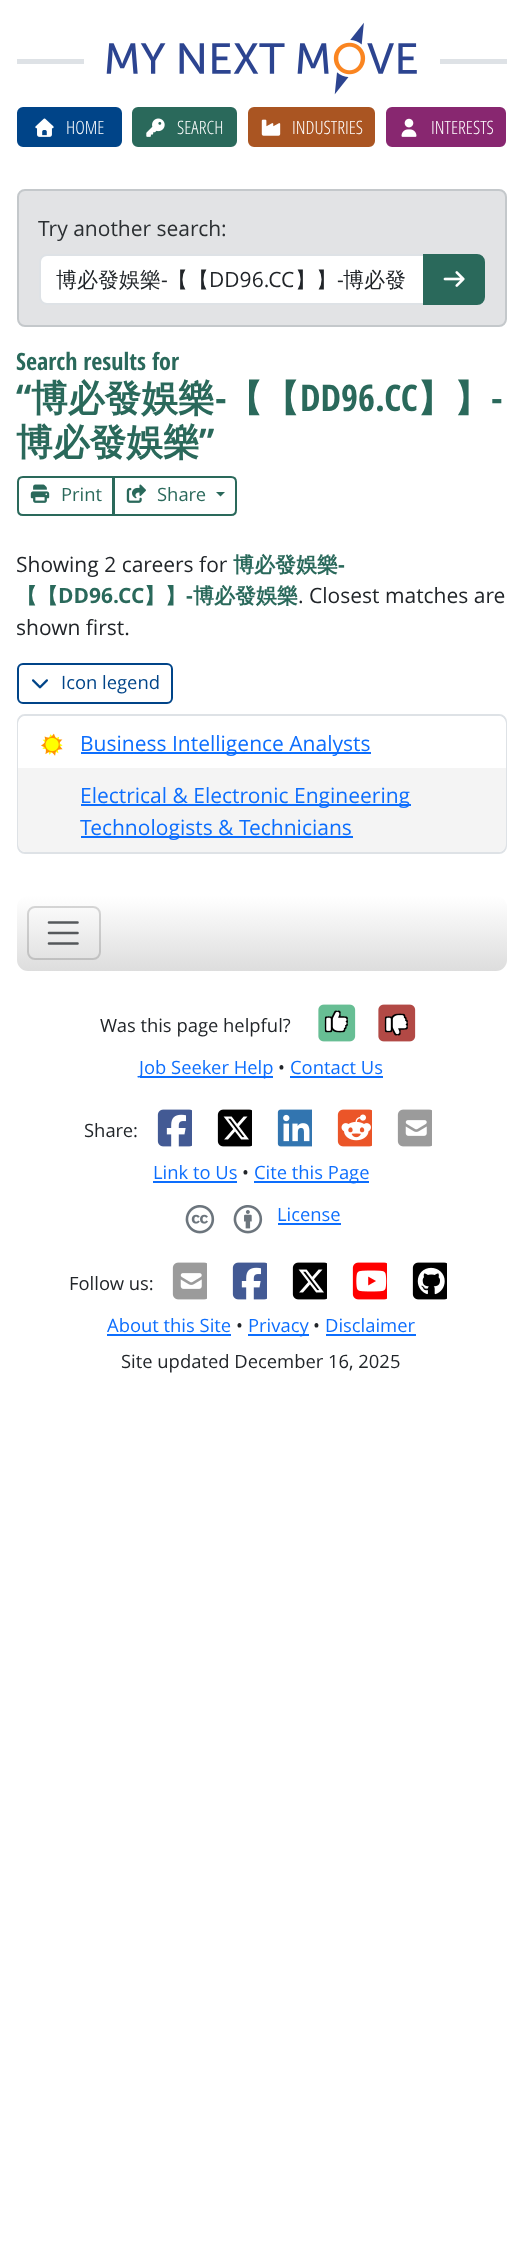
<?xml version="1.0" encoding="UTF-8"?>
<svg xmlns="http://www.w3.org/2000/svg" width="522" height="2241">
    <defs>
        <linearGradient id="g1" gradientUnits="userSpaceOnUse" x1="262" y1="896" x2="262" y2="971"><stop offset="0" stop-color="#FFFFFF"/><stop offset="1" stop-color="#DDDDDD"/></linearGradient>
    </defs>
    <rect width="100%" height="100%" fill="#FFFFFF"/>
    <rect x="17" y="59" width="490" height="5" fill="#DEE2E6"/>
    <rect x="84" y="59" width="356" height="5" fill="#FFFFFF"/>
    <image x="106" y="22" width="311" height="73" href="img_01.png"/>
    <rect x="18" y="108" width="103" height="38" rx="5" fill="#004488" stroke="#004488" stroke-width="2"/>
    <image x="35" y="118" width="19" height="19" href="img_02.png"/>
    <text x="66" y="134" font-family="Open Sans" font-size="18.4" font-weight="300" fill="#FFFFFF">HOME</text>
    <rect x="133" y="108" width="103" height="38" rx="5" fill="#2A695B" stroke="#2A695B" stroke-width="2"/>
    <image x="146" y="118" width="19" height="19" href="img_03.png"/>
    <text x="177" y="134" font-family="Open Sans" font-size="18.4" font-weight="300" fill="#FFFFFF">SEARCH</text>
    <rect x="249" y="108" width="125" height="38" rx="5" fill="#AA5522" stroke="#AA5522" stroke-width="2"/>
    <image x="261" y="119" width="20" height="17" href="img_04.png"/>
    <text x="292" y="134" font-family="Open Sans" font-size="18.4" font-weight="300" fill="#FFFFFF">INDUSTRIES</text>
    <rect x="387" y="108" width="118" height="38" rx="5" fill="#882770" stroke="#882770" stroke-width="2"/>
    <image x="401" y="118" width="16" height="19" href="img_05.png"/>
    <text x="431" y="134" font-family="Open Sans" font-size="18.4" font-weight="300" fill="#FFFFFF">INTERESTS</text>
    <rect x="18" y="190" width="488" height="136" rx="7" fill="#E2E3E5" stroke="#C4C8CB" stroke-width="2"/>
    <text x="38" y="236" font-family="Open Sans" font-size="21" fill="#2B2F32">Try another search:</text>
    <path d="M 47 255 H 424 V 304 H 47 C 43 304 40 301 40 297 V 262 C 40 258 43 255 47 255 Z" fill="#FFFFFF" stroke="#DEE2E6" stroke-width="2"/>
    <text x="56" y="287" font-family="WenQuanYi Zen Hei" font-size="21" font-weight="500" fill="#212529">博必發娛樂</text>
    <text x="161" y="287" font-family="Open Sans" font-size="21" fill="#212529">-</text>
    <text x="167" y="287" font-family="WenQuanYi Zen Hei" font-size="21" font-weight="500" fill="#212529">【【</text>
    <text x="209" y="287" font-family="Open Sans" font-size="21" fill="#212529">DD96.CC</text>
    <text x="295" y="287" font-family="WenQuanYi Zen Hei" font-size="21" font-weight="500" fill="#212529">】】</text>
    <text x="337" y="287" font-family="Open Sans" font-size="21" fill="#212529">-</text>
    <text x="343" y="287" font-family="WenQuanYi Zen Hei" font-size="21" font-weight="500" fill="#212529">博必發</text>
    <path d="M 424 255 H 477 C 481 255 484 258 484 262 V 297 C 484 301 481 304 477 304 H 424 Z" fill="#2A695B" stroke="#2A695B" stroke-width="2"/>
    <image x="443" y="271" width="22" height="16" href="img_06.png"/>
    <text x="16" y="370" font-family="Open Sans Condensed" font-size="24" font-weight="700" fill="#2A695B">Search results for</text>
    <text x="16" y="411" font-family="Open Sans Condensed" font-size="36.75" font-weight="700" fill="#2A695B">“</text>
    <text x="31" y="411" font-family="WenQuanYi Zen Hei" font-size="36.75" font-weight="700" fill="#2A695B">博必發娛樂</text>
    <text x="215" y="411" font-family="Open Sans Condensed" font-size="36.75" font-weight="700" fill="#2A695B">-</text>
    <text x="226" y="411" font-family="WenQuanYi Zen Hei" font-size="36.75" font-weight="700" fill="#2A695B">【【</text>
    <text x="300" y="411" font-family="Open Sans Condensed" font-size="36.75" font-weight="700" fill="#2A695B">DD96.CC</text>
    <text x="417" y="411" font-family="WenQuanYi Zen Hei" font-size="36.75" font-weight="700" fill="#2A695B">】】</text>
    <text x="491" y="411" font-family="Open Sans Condensed" font-size="36.75" font-weight="700" fill="#2A695B">-</text>
    <text x="16" y="455" font-family="WenQuanYi Zen Hei" font-size="36.75" font-weight="700" fill="#2A695B">博必發娛樂</text>
    <text x="199" y="455" font-family="Open Sans Condensed" font-size="36.75" font-weight="700" fill="#2A695B">”</text>
    <path d="M 23 477 H 113 V 515 H 23 C 20 515 18 513 18 510 V 482 C 18 479 20 477 23 477 Z" fill="none" stroke="#2A695B" stroke-width="2"/>
    <image x="30" y="484" width="20" height="19" href="img_07.png"/>
    <text x="61" y="501" font-family="Open Sans" font-size="18.4" fill="#2A695B">Print</text>
    <path d="M 114 477 H 231 C 234 477 236 479 236 482 V 510 C 236 513 234 515 231 515 H 114 Z" fill="none" stroke="#2A695B" stroke-width="2"/>
    <image x="126" y="484" width="20" height="19" href="img_08.png"/>
    <text x="157" y="501" font-family="Open Sans" font-size="18.4" fill="#2A695B">Share</text>
    <path d="M 216 492 H 225 L 220.5 496.5 Z" fill="#2A695B"/>
    <text x="16" y="572" font-family="Open Sans" font-size="21" fill="#212529">Showing 2 careers for</text>
    <text x="233" y="572" font-family="WenQuanYi Zen Hei" font-size="21" font-weight="700" fill="#2A695B">博必發娛樂</text>
    <text x="338" y="572" font-family="Open Sans" font-size="21" font-weight="700" fill="#2A695B">-</text>
    <text x="16" y="603" font-family="WenQuanYi Zen Hei" font-size="21" font-weight="700" fill="#2A695B">【【</text>
    <text x="58" y="603" font-family="Open Sans" font-size="21" font-weight="700" fill="#2A695B">DD96.CC</text>
    <text x="144" y="603" font-family="WenQuanYi Zen Hei" font-size="21" font-weight="700" fill="#2A695B">】】</text>
    <text x="186" y="603" font-family="Open Sans" font-size="21" font-weight="700" fill="#2A695B">-</text>
    <text x="193" y="603" font-family="WenQuanYi Zen Hei" font-size="21" font-weight="700" fill="#2A695B">博必發娛樂</text>
    <text x="298" y="603" font-family="Open Sans" font-size="21" fill="#212529">. Closest matches are</text>
    <text x="16" y="635" font-family="Open Sans" font-size="21" fill="#212529">shown first.</text>
    <rect x="18" y="664" width="154" height="39" rx="5" fill="none" stroke="#004488" stroke-width="2"/>
    <image x="32" y="679" width="16" height="10" href="img_09.png"/>
    <text x="61" y="689" font-family="Open Sans" font-size="18.4" fill="#004488">Icon legend</text>
    <rect x="18" y="715" width="488" height="138" rx="7" fill="none" stroke="#DEE2E6" stroke-width="2"/>
    <path d="M 26 716 H 498 C 502.5 716 506 719.5 506 724 V 768 H 18 V 724 C 18 719.5 21.5 716 26 716 Z" fill="#FFFFFF"/>
    <image x="41" y="733" width="22" height="23" href="img_10.png"/>
    <rect x="81" y="752" width="290" height="2" fill="#0D6EFD"/>
    <text x="80" y="751" font-family="Open Sans" font-size="21" fill="#0D6EFD">Business Intelligence Analysts</text>
    <path d="M 18 768 H 506 V 844 C 506 848.5 502.5 852 498 852 H 26 C 21.5 852 18 848.5 18 844 Z" fill="#F4F4F4"/>
    <rect x="81" y="804" width="330" height="2" fill="#0D6EFD"/>
    <text x="80" y="803" font-family="Open Sans" font-size="21" fill="#0D6EFD">Electrical &amp; Electronic Engineering</text>
    <rect x="81" y="836" width="272" height="2" fill="#0D6EFD"/>
    <text x="80" y="835" font-family="Open Sans" font-size="21" fill="#0D6EFD">Technologists &amp; Technicians</text>
    <rect x="17" y="896" width="490" height="75" rx="11" fill="url(#g1)"/>
    <rect x="28" y="907" width="72" height="52" rx="7" fill="none" stroke="#000000" stroke-opacity="0.15" stroke-width="2"/>
    <path d="M 49 922.5 H 77.5 M 49 933 H 77.5 M 49 943.5 H 77.5" fill="none" stroke="#212529" stroke-opacity="0.75" stroke-width="2.6" stroke-linecap="round"/>
    <text x="100" y="1032" font-family="Open Sans" font-size="18.4" fill="#212529">Was this page helpful?</text>
    <image x="318" y="1004" width="38" height="38" href="img_11.png"/>
    <image x="324" y="1010" width="21" height="19" href="img_12.png"/>
    <image x="328" y="1013" width="20" height="20" href="img_15.png"/>
    <image x="328" y="1010" width="20" height="19" href="img_13.png"/>
    <image x="324" y="1020" width="18" height="13" href="img_16.png"/>
    <image x="326" y="1011" width="21" height="20" href="img_14.png"/>
    <image x="378" y="1004" width="38" height="38" href="img_17.png"/>
    <image x="384" y="1013" width="18" height="16" href="img_18.png"/>
    <image x="388" y="1019" width="20" height="17" href="img_21.png"/>
    <image x="388" y="1013" width="20" height="20" href="img_19.png"/>
    <image x="384" y="1020" width="21" height="16" href="img_22.png"/>
    <image x="386" y="1015" width="21" height="20" href="img_20.png"/>
    <rect x="140" y="1076" width="133" height="2" fill="#0D6EFD"/>
    <text x="139" y="1074" font-family="Open Sans" font-size="18.4" fill="#0D6EFD">Job Seeker Help</text>
    <text x="278" y="1074" font-family="Open Sans" font-size="18.4" fill="#212529">•</text>
    <text x="290" y="1074" font-family="Open Sans" font-size="18.4" fill="#0D6EFD">Contact Us</text>
    <rect x="290" y="1076" width="93" height="2" fill="#0D6EFD"/>
    <text x="84" y="1137" font-family="Open Sans" font-size="18.4" fill="#212529">Share:</text>
    <image x="157" y="1109" width="35" height="38" href="img_23.png"/>
    <image x="217" y="1109" width="35" height="38" href="img_24.png"/>
    <image x="277" y="1109" width="35" height="38" href="img_25.png"/>
    <image x="337" y="1109" width="35" height="38" href="img_26.png"/>
    <image x="397" y="1109" width="35" height="38" href="img_27.png"/>
    <text x="153" y="1179" font-family="Open Sans" font-size="18.4" fill="#0D6EFD">Link to Us</text>
    <rect x="153" y="1181" width="84" height="2" fill="#0D6EFD"/>
    <text x="242" y="1179" font-family="Open Sans" font-size="18.4" fill="#212529">•</text>
    <rect x="254" y="1181" width="115" height="2" fill="#0D6EFD"/>
    <text x="254" y="1179" font-family="Open Sans" font-size="18.4" fill="#0D6EFD">Cite this Page</text>
    <image x="185" y="1205" width="30" height="29" href="img_28.png"/>
    <image x="233" y="1205" width="30" height="29" href="img_29.png"/>
    <text x="277" y="1221" font-family="Open Sans" font-size="18.4" fill="#0D6EFD">License</text>
    <rect x="278" y="1223" width="63" height="2" fill="#0D6EFD"/>
    <text x="69" y="1290" font-family="Open Sans" font-size="18.4" fill="#212529">Follow us:</text>
    <image x="172" y="1262" width="35" height="38" href="img_27.png"/>
    <image x="232" y="1262" width="35" height="38" href="img_23.png"/>
    <image x="292" y="1262" width="35" height="38" href="img_24.png"/>
    <image x="352" y="1262" width="35" height="38" href="img_30.png"/>
    <image x="412" y="1262" width="35" height="38" href="img_31.png"/>
    <text x="107" y="1332" font-family="Open Sans" font-size="18.4" fill="#0D6EFD">About this Site</text>
    <rect x="107" y="1334" width="124" height="2" fill="#0D6EFD"/>
    <text x="236" y="1332" font-family="Open Sans" font-size="18.4" fill="#212529">•</text>
    <rect x="248" y="1334" width="61" height="2" fill="#0D6EFD"/>
    <text x="248" y="1332" font-family="Open Sans" font-size="18.4" fill="#0D6EFD">Privacy</text>
    <text x="313" y="1332" font-family="Open Sans" font-size="18.4" fill="#212529">•</text>
    <text x="325" y="1332" font-family="Open Sans" font-size="18.4" fill="#0D6EFD">Disclaimer</text>
    <rect x="326" y="1334" width="90" height="2" fill="#0D6EFD"/>
    <text x="121" y="1368" font-family="Open Sans" font-size="18.4" fill="#212529">Site updated December 16, 2025</text>
</svg>
